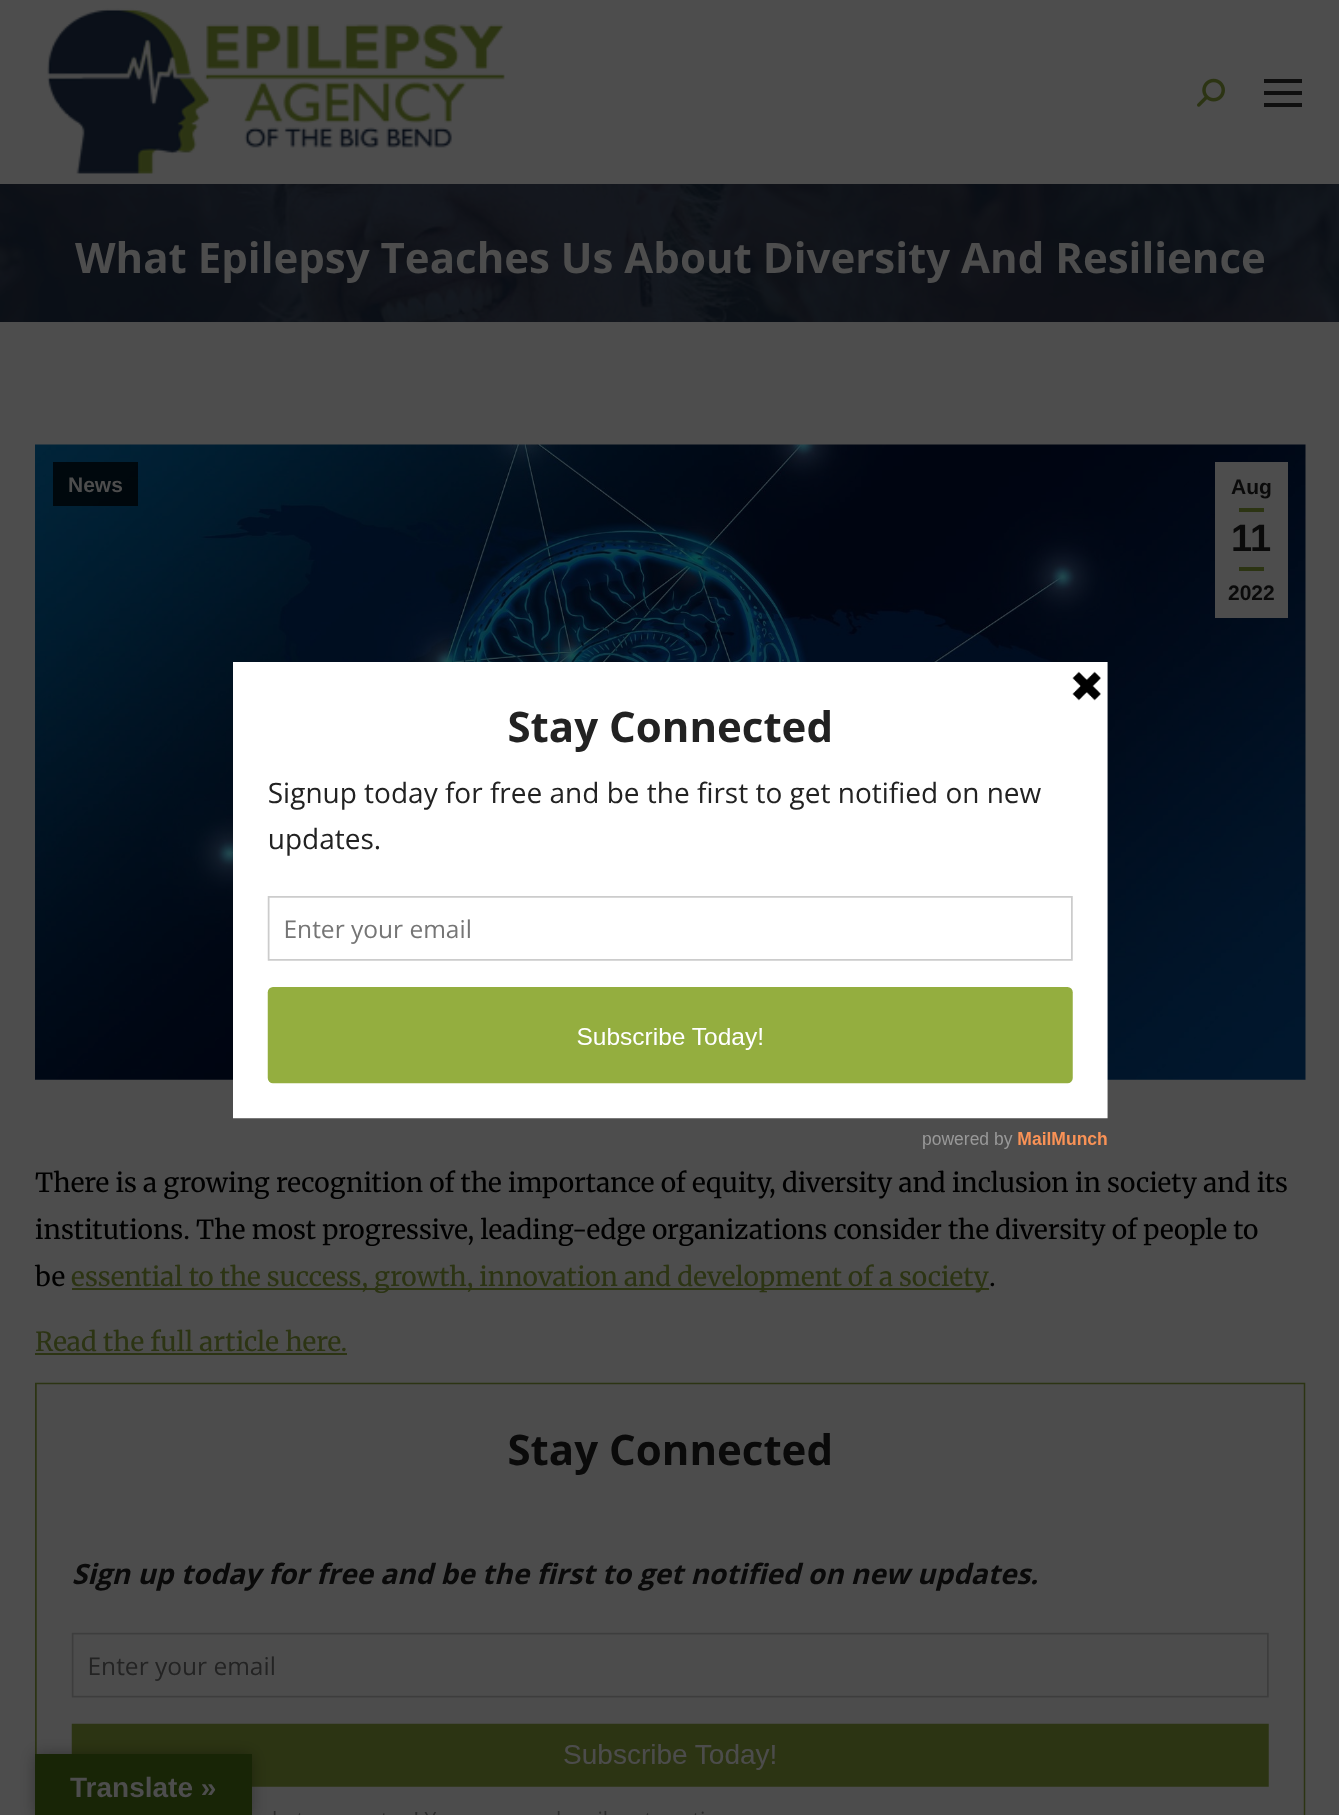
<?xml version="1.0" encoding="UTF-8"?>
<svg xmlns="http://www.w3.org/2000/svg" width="1339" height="1815">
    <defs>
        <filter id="blur1" x="-50%" y="-200%" width="200%" height="500%"><feGaussianBlur stdDeviation="8"/></filter>
    </defs>
    <rect width="100%" height="100%" fill="#4D4D4D"/>
    <image x="47" y="8" width="458" height="166" href="img_01.png"/>
    <image x="1197" y="78" width="28" height="29" href="img_02.png"/>
    <rect x="1264" y="79" width="38" height="4" fill="#0F0F0F"/>
    <rect x="1264" y="91" width="38" height="4" fill="#0F0F0F"/>
    <rect x="1264" y="103" width="38" height="4" fill="#0F0F0F"/>
    <image x="0" y="184" width="1339" height="138" href="img_03.png"/>
    <text x="75" y="273" font-family="Open Sans" font-size="42" font-weight="700" fill="#4D4D4D">What Epilepsy Teaches Us About Diversity And Resilience</text>
    <image x="35" y="444" width="1271" height="636" href="img_04.png"/>
    <rect x="53" y="462" width="85" height="44" fill="#000000" fill-opacity="0.75"/>
    <text x="68" y="492" font-family="Liberation Sans" font-size="21" font-weight="700" fill="#4D4D4D">News</text>
    <rect x="1215" y="462" width="73" height="156" fill="#4D4D4D"/>
    <text x="1231" y="494" font-family="Liberation Sans" font-size="21" font-weight="700" fill="#0A0A0A">Aug</text>
    <rect x="1239" y="508" width="25" height="4" fill="#2C3413"/>
    <text x="1231" y="551" font-family="Liberation Sans" font-size="38" font-weight="700" fill="#0A0A0A">11</text>
    <rect x="1239" y="567" width="25" height="4" fill="#2C3413"/>
    <text x="1228" y="600" font-family="Liberation Sans" font-size="21" font-weight="700" fill="#0A0A0A">2022</text>
    <text font-family="Merriweather" font-size="26.25" fill="#000000">
        <tspan x="35" y="1192">There is a growing recognition of the importance of equity, diversity and inclusion in society and its</tspan>
        <tspan x="35" y="1239">institutions. The most progressive, leading-edge organizations consider the diversity of people to</tspan>
        <tspan x="35" y="1286">be</tspan>
    </text>
    <rect x="72" y="1288" width="917" height="2" fill="#2C3413"/>
    <text x="71" y="1286" word-spacing="-0.25" font-family="Merriweather" font-size="26.25" fill="#2C3413">essential to the success, growth, innovation and development of a society</text>
    <text x="989" y="1286" font-family="Merriweather" font-size="26.25" fill="#000000">.</text>
    <text x="35" y="1351" font-family="Merriweather" font-size="26.25" fill="#2C3413">Read the full article here.</text>
    <rect x="35" y="1353" width="312" height="2" fill="#2C3413"/>
    <image x="35" y="1382" width="1271" height="433" href="img_05.png"/>
    <image x="233" y="662" width="875" height="487" href="img_06.png"/>
    <rect x="35" y="1754" width="217" height="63" fill="#000000" fill-opacity="0.3" filter="url(#blur1)"/>
    <rect x="35" y="1754" width="217" height="61" fill="#182506"/>
    <text x="70" y="1797" font-family="Liberation Sans" font-size="28" font-weight="700" fill="#4D4D4D">Translate »</text>
</svg>
